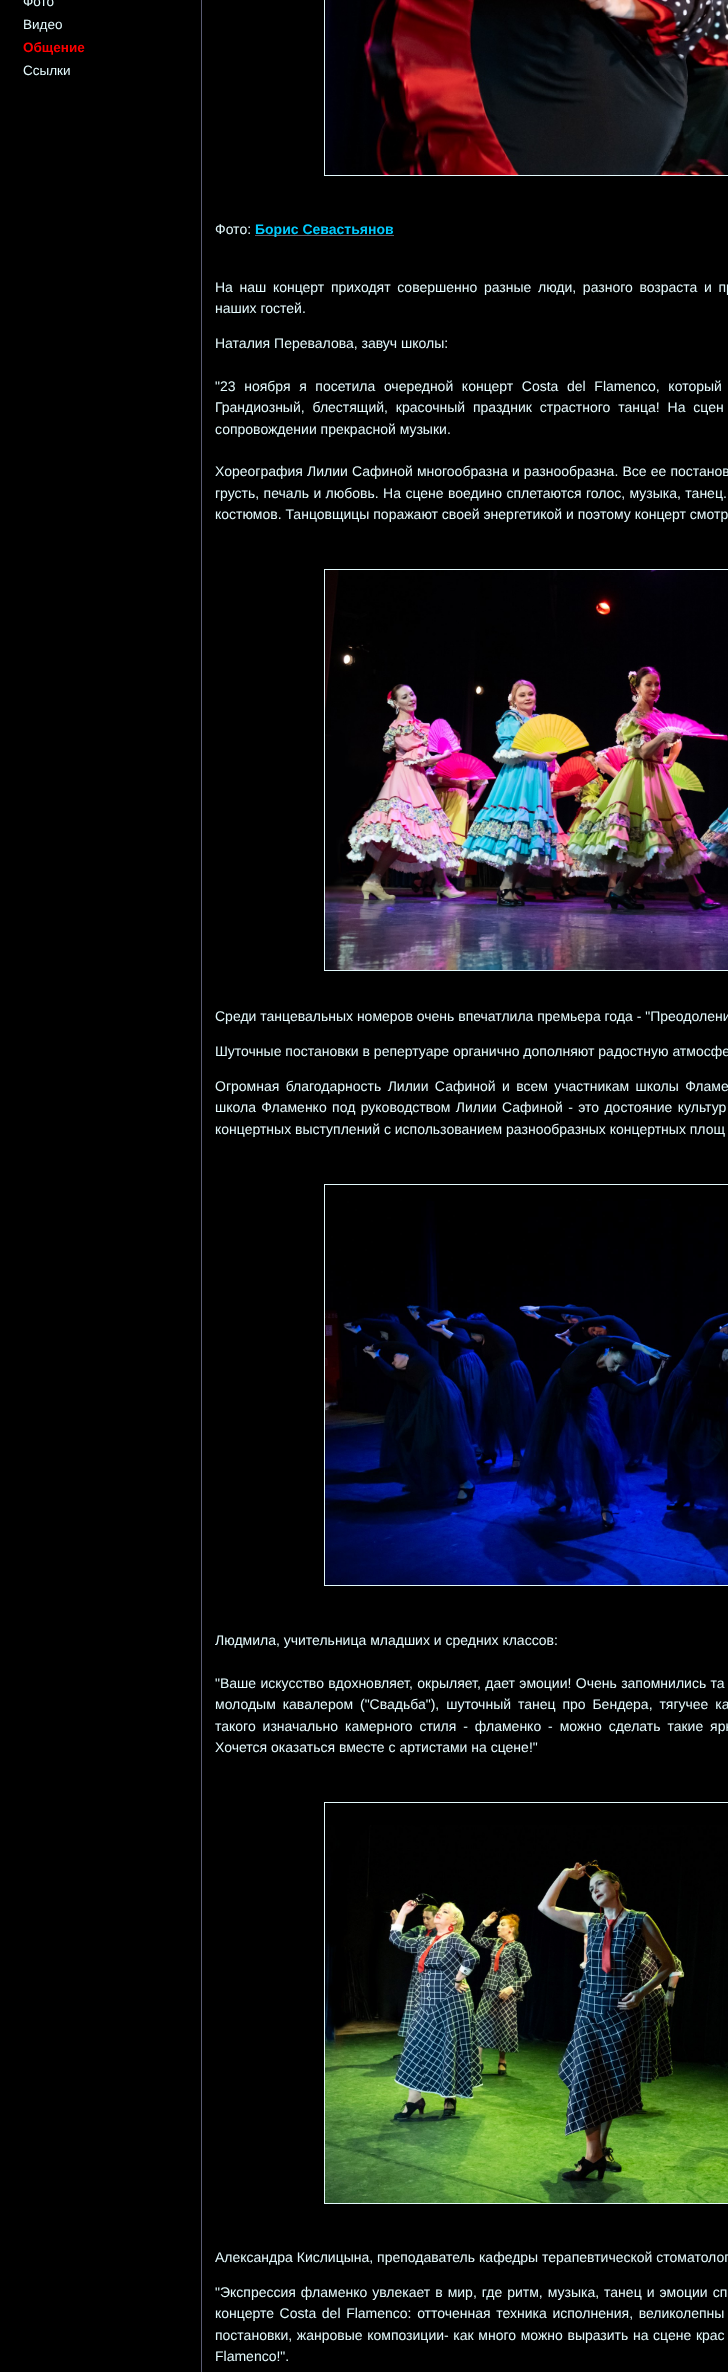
<?xml version="1.0" encoding="UTF-8"?>
<svg xmlns="http://www.w3.org/2000/svg" width="728" height="2372">
    <rect width="100%" height="100%" fill="#000000"/>
    <text font-family="Liberation Sans" font-size="13.5" fill="#E4FAFD">
        <tspan x="23" y="6">Фото</tspan>
        <tspan x="23" y="29">Видео</tspan>
    </text>
    <text x="23" y="52" font-family="Liberation Sans" font-size="13.5" font-weight="700" fill="#FF0000">Общение</text>
    <text x="23" y="75" font-family="Liberation Sans" font-size="13.5" fill="#E4FAFD">Ссылки</text>
    <rect x="201.5" y="-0.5" width="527" height="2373" fill="none" stroke="#5B5C74"/>
    <rect x="324.5" y="-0.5" width="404" height="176" fill="none" stroke="#E4FAFD"/>
    <image x="325" y="0" width="403" height="175" href="img_01.png"/>
    <text x="215" y="234" font-family="Liberation Sans" font-size="14" fill="#E4FAFD">Фото:</text>
    <rect x="255" y="235" width="139" height="1" fill="#60606B"/>
    <text x="255" y="234" font-family="Liberation Sans" font-size="14" font-weight="700" fill="#00CCFF">Борис Севастьянов</text>
    <text font-family="Liberation Sans" font-size="14" fill="#E4FAFD">
        <tspan x="215" y="292" word-spacing="2.75">На наш концерт приходят совершенно разные люди, разного возраста и пр</tspan>
        <tspan x="215" y="313">наших гостей.</tspan>
    </text>
    <text x="215" y="348" font-family="Liberation Sans" font-size="14" fill="#E4FAFD">Наталия Перевалова, завуч школы:</text>
    <text font-family="Liberation Sans" font-size="14" fill="#E4FAFD">
        <tspan x="215" y="391" word-spacing="4.75">"23 ноября я посетила очередной концерт Costa del Flamenco, который</tspan>
        <tspan x="215" y="412" word-spacing="4">Грандиозный, блестящий, красочный праздник страстного танца! На сцен</tspan>
        <tspan x="215" y="434">сопровождении прекрасной музыки.</tspan>
    </text>
    <text font-family="Liberation Sans" font-size="14" fill="#E4FAFD">
        <tspan x="215" y="476" word-spacing="0.25">Хореография Лилии Сафиной многообразна и разнообразна. Все ее постанов</tspan>
        <tspan x="215" y="498" word-spacing="0.5">грусть, печаль и любовь. На сцене воедино сплетаются голос, музыка, танец.</tspan>
        <tspan x="215" y="519">костюмов. Танцовщицы поражают своей энергетикой и поэтому концерт смотр</tspan>
    </text>
    <rect x="324.5" y="569.5" width="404" height="401" fill="none" stroke="#E4FAFD"/>
    <image x="325" y="570" width="403" height="400" href="img_02.png"/>
    <text x="215" y="1021" font-family="Liberation Sans" font-size="14" fill="#E4FAFD">Среди танцевальных номеров очень впечатлила премьера года - "Преодолени</text>
    <text x="215" y="1056" font-family="Liberation Sans" font-size="14" fill="#E4FAFD">Шуточные постановки в репертуаре органично дополняют радостную атмосфе</text>
    <text font-family="Liberation Sans" font-size="14" fill="#E4FAFD">
        <tspan x="215" y="1091" word-spacing="2.5">Огромная благодарность Лилии Сафиной и всем участникам школы Фламе</tspan>
        <tspan x="215" y="1112" word-spacing="1.5">школа Фламенко под руководством Лилии Сафиной - это достояние культур</tspan>
        <tspan x="215" y="1134">концертных выступлений с использованием разнообразных концертных площ</tspan>
    </text>
    <rect x="324.5" y="1184.5" width="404" height="401" fill="none" stroke="#E4FAFD"/>
    <image x="325" y="1199" width="403" height="386" href="img_03.png"/>
    <text x="215" y="1645" font-family="Liberation Sans" font-size="14" fill="#E4FAFD">Людмила, учительница младших и средних классов:</text>
    <text font-family="Liberation Sans" font-size="14" fill="#E4FAFD">
        <tspan x="215" y="1688" word-spacing="0.5">"Ваше искусство вдохновляет, окрыляет, дает эмоции! Очень запомнились та</tspan>
        <tspan x="215" y="1709" word-spacing="3">молодым кавалером ("Свадьба"), шуточный танец про Бендера, тягучее ка</tspan>
        <tspan x="215" y="1731" word-spacing="3">такого изначально камерного стиля - фламенко - можно сделать такие ярк</tspan>
        <tspan x="215" y="1752">Хочется оказаться вместе с артистами на сцене!"</tspan>
    </text>
    <rect x="324.5" y="1802.5" width="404" height="401" fill="none" stroke="#E4FAFD"/>
    <image x="325" y="1825" width="403" height="378" href="img_04.png"/>
    <text x="215" y="2262" font-family="Liberation Sans" font-size="14" fill="#E4FAFD">Александра Кислицына, преподаватель кафедры терапевтической стоматолог</text>
    <text font-family="Liberation Sans" font-size="14" fill="#E4FAFD">
        <tspan x="215" y="2297" word-spacing="1.1">"Экспрессия фламенко увлекает в мир, где ритм, музыка, танец и эмоции сп</tspan>
        <tspan x="215" y="2318" word-spacing="1.75">концерте Costa del Flamenco: отточенная техника исполнения, великолепны</tspan>
        <tspan x="215" y="2340" word-spacing="0.75">постановки, жанровые композиции- как много можно выразить на сцене крас</tspan>
        <tspan x="215" y="2361">Flamenco!".</tspan>
    </text>
</svg>
